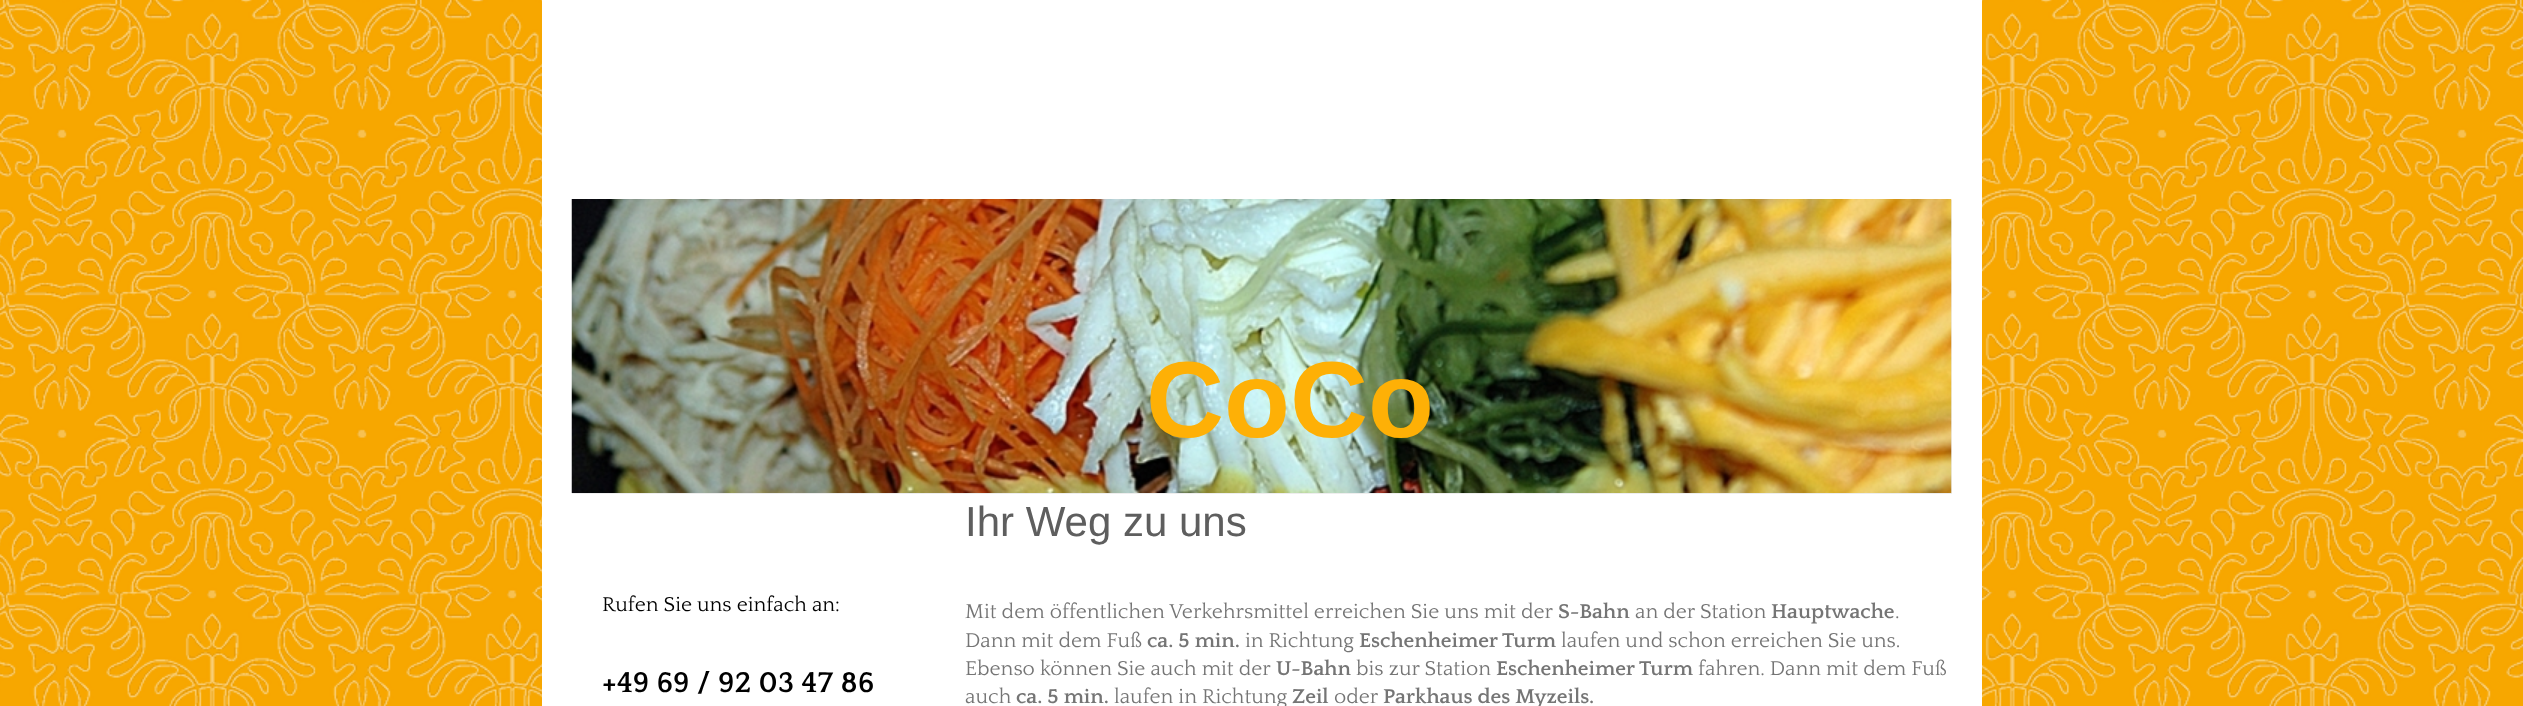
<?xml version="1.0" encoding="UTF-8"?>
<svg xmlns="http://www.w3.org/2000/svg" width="2523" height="706">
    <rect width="100%" height="100%" fill="#FFFFFF"/>
    <image x="0" y="0" width="2523" height="706" href="img_01.png"/>
    <rect x="542" y="0" width="1440" height="706" fill="#FFFFFF"/>
    <rect x="572" y="200" width="1380" height="294" fill="#EEEEEE"/>
    <image x="571" y="199" width="1381" height="294" href="img_02.png"/>
    <text x="1146" y="437" font-family="Liberation Sans" font-size="108" font-weight="700" fill="#FEB006">CoCo</text>
    <text x="602" y="611" font-family="Quattrocento" font-size="21" fill="#000000">Rufen Sie uns einfach an:</text>
    <text x="602" y="692" font-family="Quattrocento" font-size="30" font-weight="700" fill="#000000">+49 69 / 92 03 47 86</text>
    <text x="965" y="536" font-family="Liberation Sans" font-size="42" fill="#5E5E5E">Ihr Weg zu uns</text>
    <text x="965" y="618" font-family="Quattrocento" font-size="21" fill="#757575">Mit dem öffentlichen Verkehrsmittel erreichen Sie uns mit der</text>
    <text x="1558" y="618" font-family="Quattrocento" font-size="21" font-weight="700" fill="#757575">S-Bahn</text>
    <text x="1635" y="618" font-family="Quattrocento" font-size="21" fill="#757575">an der Station</text>
    <text x="1771" y="618" font-family="Quattrocento" font-size="21" font-weight="700" fill="#757575">Hauptwache</text>
    <text x="1895" y="618" font-family="Quattrocento" font-size="21" fill="#757575">.</text>
    <text x="965" y="647" font-family="Quattrocento" font-size="21" fill="#757575">Dann mit dem Fuß</text>
    <text x="1147" y="647" font-family="Quattrocento" font-size="21" font-weight="700" fill="#757575">ca. 5 min.</text>
    <text x="1245" y="647" font-family="Quattrocento" font-size="21" fill="#757575">in Richtung</text>
    <text x="1359" y="647" font-family="Quattrocento" font-size="21" font-weight="700" fill="#757575">Eschenheimer Turm</text>
    <text x="1561" y="647" font-family="Quattrocento" font-size="21" fill="#757575">laufen und schon erreichen Sie uns.</text>
    <text x="965" y="675" font-family="Quattrocento" font-size="21" fill="#757575">Ebenso können Sie auch mit der</text>
    <text x="1276" y="675" font-family="Quattrocento" font-size="21" font-weight="700" fill="#757575">U-Bahn</text>
    <text x="1356" y="675" font-family="Quattrocento" font-size="21" fill="#757575">bis zur Station</text>
    <text x="1496" y="675" font-family="Quattrocento" font-size="21" font-weight="700" fill="#757575">Eschenheimer Turm</text>
    <text x="1698" y="675" font-family="Quattrocento" font-size="21" fill="#757575">fahren. Dann mit dem Fuß</text>
    <text x="965" y="703" font-family="Quattrocento" font-size="21" fill="#757575">auch</text>
    <text x="1016" y="703" font-family="Quattrocento" font-size="21" font-weight="700" fill="#757575">ca. 5 min.</text>
    <text x="1114" y="703" font-family="Quattrocento" font-size="21" fill="#757575">laufen in Richtung</text>
    <text x="1292" y="703" font-family="Quattrocento" font-size="21" font-weight="700" fill="#757575">Zeil</text>
    <text x="1334" y="703" font-family="Quattrocento" font-size="21" fill="#757575">oder</text>
    <text x="1383" y="703" font-family="Quattrocento" font-size="21" font-weight="700" fill="#757575">Parkhaus des Myzeils.</text>
</svg>
